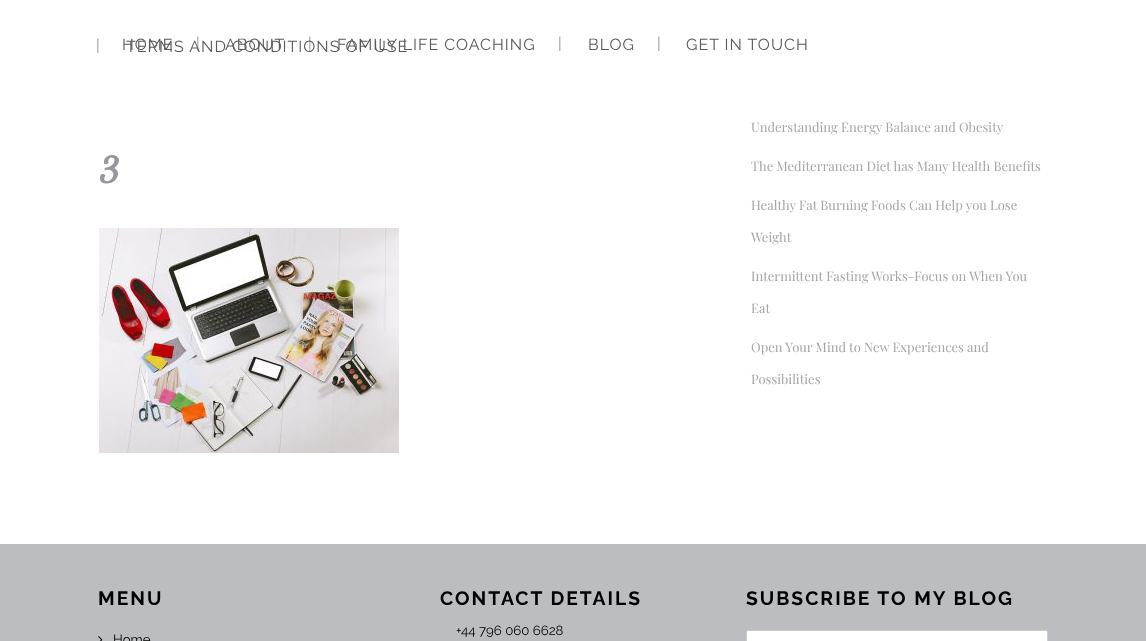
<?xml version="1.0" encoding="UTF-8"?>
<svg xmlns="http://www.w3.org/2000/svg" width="1146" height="641">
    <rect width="100%" height="100%" fill="#FFFFFF"/>
    <text x="196" y="49" font-family="Raleway" font-size="16" fill="#96979C">|</text>
    <text x="225" y="50" font-family="Raleway" font-size="16" letter-spacing="1" fill="#595959">ABOUT</text>
    <text x="308" y="49" font-family="Raleway" font-size="16" fill="#96979C">|</text>
    <text x="337" y="50" font-family="Raleway" font-size="16" letter-spacing="1" fill="#595959">FAMILY LIFE COACHING</text>
    <text x="558" y="49" font-family="Raleway" font-size="16" fill="#96979C">|</text>
    <text x="588" y="50" font-family="Raleway" font-size="16" letter-spacing="1" fill="#595959">BLOG</text>
    <text x="657" y="49" font-family="Raleway" font-size="16" fill="#96979C">|</text>
    <text x="686" y="50" font-family="Raleway" font-size="16" letter-spacing="1" fill="#595959">GET IN TOUCH</text>
    <text x="96" y="51" font-family="Raleway" font-size="16" fill="#96979C">|</text>
    <text x="122" y="50" font-family="Raleway" font-size="16" letter-spacing="1" fill="#595959">HOME</text>
    <text x="126" y="52" font-family="Raleway" font-size="16" letter-spacing="1" fill="#595959">TERMS AND CONDITIONS OF USE</text>
    <text x="99" y="183" font-family="Arapey" font-size="46" font-weight="700" font-style="italic" letter-spacing="2" fill="#96979C">3</text>
    <image x="99" y="228" width="300" height="225" href="img_01.png"/>
    <text x="751" y="132" font-family="Playfair Display" font-size="13" fill="#A6A6A6">Understanding Energy Balance and Obesity</text>
    <text x="751" y="171" font-family="Playfair Display" font-size="13" fill="#A6A6A6">The Mediterranean Diet has Many Health Benefits</text>
    <text x="751" y="210" font-family="Playfair Display" font-size="13" fill="#A6A6A6">Healthy Fat Burning Foods Can Help you Lose</text>
    <text x="751" y="242" font-family="Playfair Display" font-size="13" fill="#A6A6A6">Weight</text>
    <text x="751" y="281" font-family="Playfair Display" font-size="13" fill="#A6A6A6">Intermittent Fasting Works-Focus on When You</text>
    <text x="751" y="313" font-family="Playfair Display" font-size="13" fill="#A6A6A6">Eat</text>
    <text x="751" y="352" font-family="Playfair Display" font-size="13" fill="#A6A6A6">Open Your Mind to New Experiences and</text>
    <text x="751" y="384" font-family="Playfair Display" font-size="13" fill="#A6A6A6">Possibilities</text>
    <rect x="0" y="544" width="1146" height="97" fill="#BCBDC0"/>
    <text x="98" y="605" font-family="Raleway" font-size="19.25" font-weight="700" letter-spacing="2" fill="#000000">MENU</text>
    <image x="98" y="636" width="5" height="5" href="img_02.png"/>
    <text x="113" y="644" font-family="Raleway" font-size="13.25" fill="#000000">Home</text>
    <text x="440" y="605" font-family="Raleway" font-size="19.25" font-weight="700" letter-spacing="2" fill="#000000">CONTACT DETAILS</text>
    <text x="456" y="635" font-family="Raleway" font-size="13.25" fill="#000000">+44 796 060 6628</text>
    <text x="746" y="605" font-family="Raleway" font-size="19.25" font-weight="700" letter-spacing="2" fill="#000000">SUBSCRIBE TO MY BLOG</text>
    <rect x="746.5" y="630.5" width="301" height="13" rx="1.5" fill="#FFFFFF" stroke="#CCCCCC"/>
</svg>
